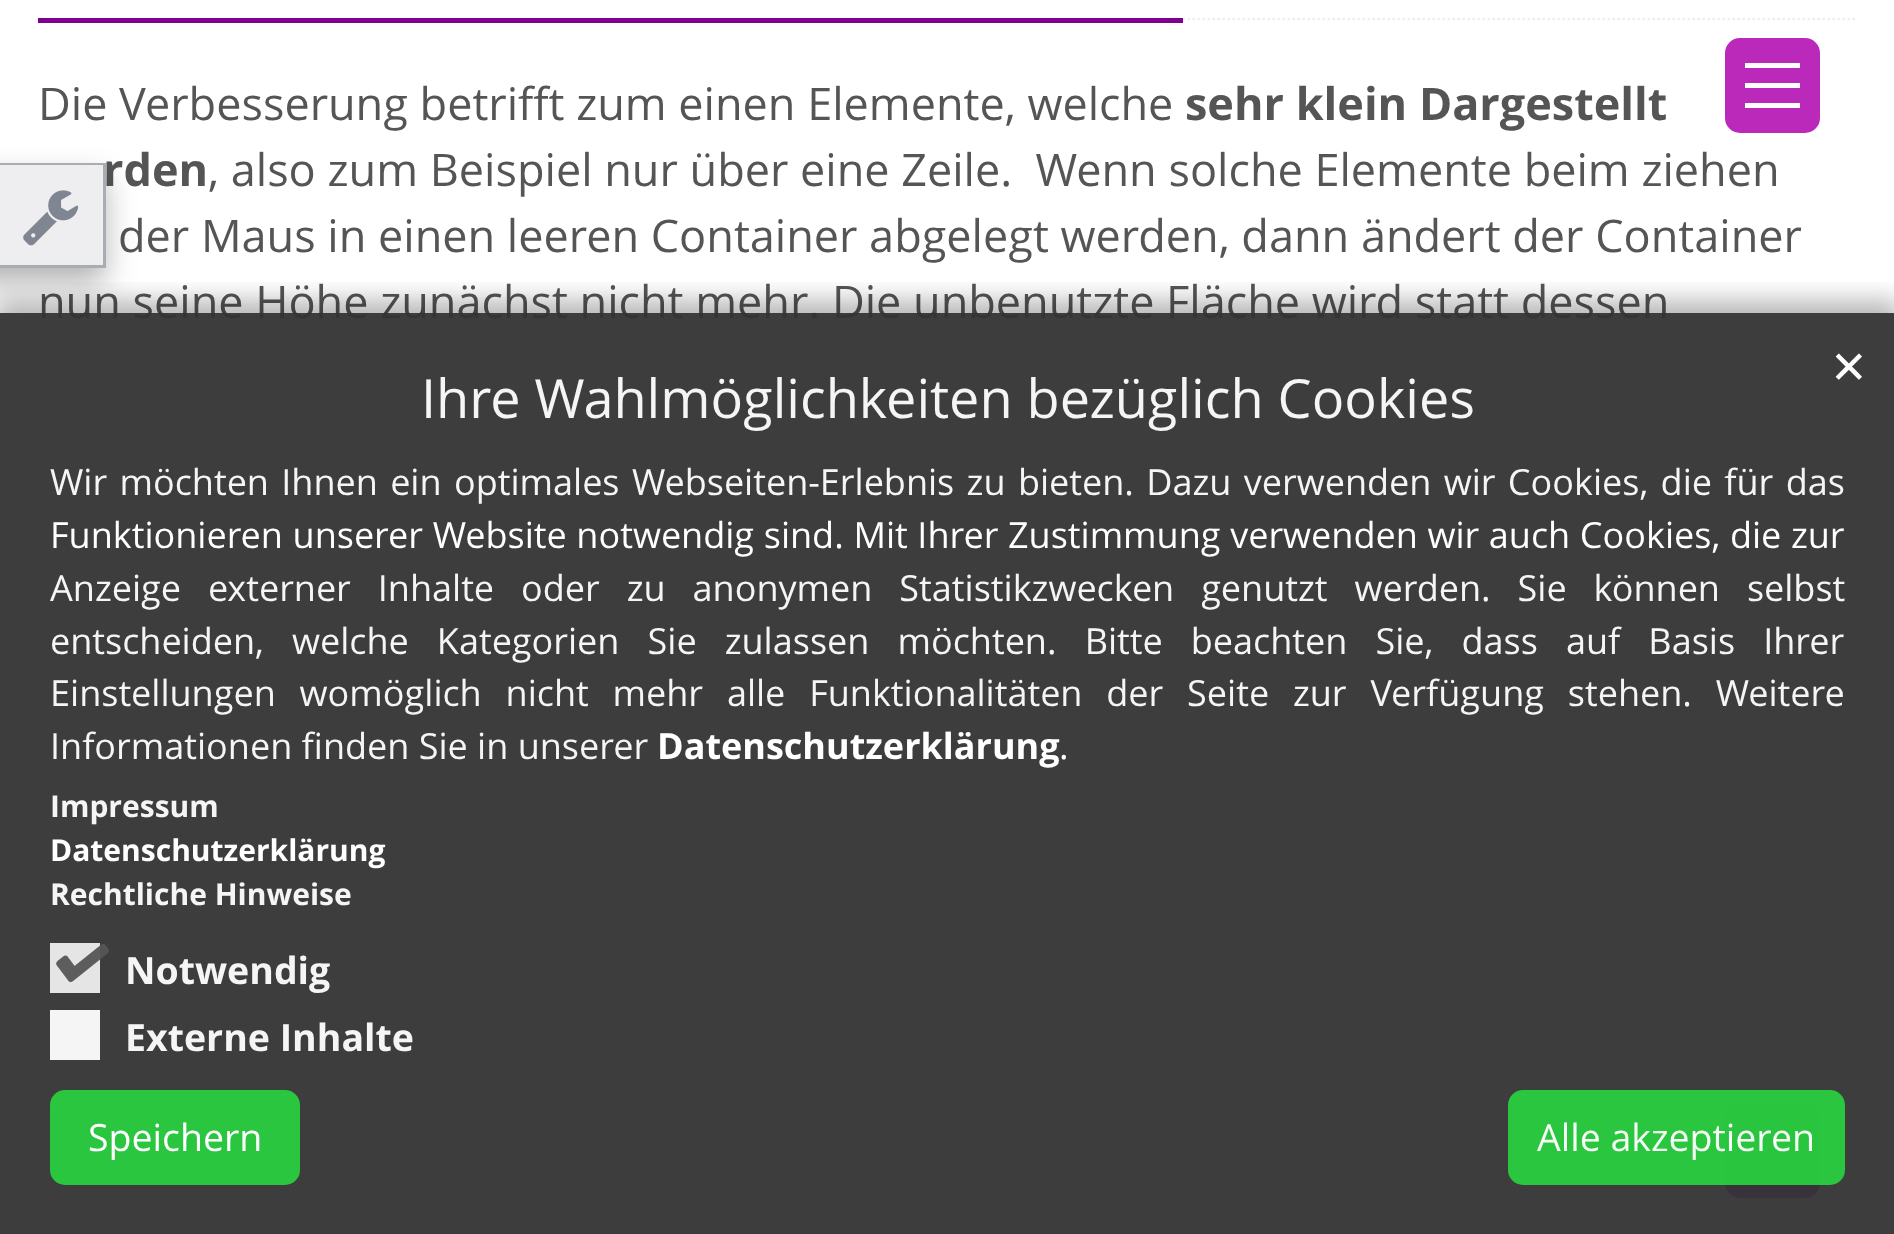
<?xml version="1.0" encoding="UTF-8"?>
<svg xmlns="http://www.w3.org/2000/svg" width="1894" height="1234">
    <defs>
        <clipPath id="clip1"><rect x="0" y="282" width="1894" height="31"/></clipPath>
        <filter id="blur1" x="-50%" y="-200%" width="200%" height="500%"><feGaussianBlur stdDeviation="12.5"/></filter>
        <filter id="blur2" x="-50%" y="-200%" width="200%" height="500%"><feGaussianBlur stdDeviation="15"/></filter>
    </defs>
    <rect width="100%" height="100%" fill="#FFFFFF"/>
    <rect x="1725" y="38" width="95" height="95" rx="15" fill="#BB29BB"/>
    <rect x="1745" y="83" width="55" height="5" fill="#FFFFFF"/>
    <rect x="1745" y="63" width="55" height="5" fill="#FFFFFF"/>
    <rect x="1745" y="103" width="55" height="5" fill="#FFFFFF"/>
    <path d="M 37.5 19 H 1857.5" fill="none" stroke="#EEEEEE" stroke-width="2.5" stroke-dasharray="2.5 2.5"/>
    <rect x="38" y="18" width="1145" height="5" fill="#7E008E"/>
    <text x="38" y="120" font-family="Open Sans" font-size="45" fill="#555555">Die Verbesserung betrifft zum einen Elemente, welche</text>
    <text x="1185" y="120" font-family="Open Sans" font-size="45" font-weight="700" fill="#555555">sehr klein Dargestellt</text>
    <text x="103" y="186" font-family="Open Sans" font-size="45" font-weight="700" fill="#555555">rden</text>
    <text x="208" y="186" font-family="Open Sans" font-size="45" fill="#555555" xml:space="preserve">, also zum Beispiel nur über eine Zeile.  Wenn solche Elemente beim ziehen</text>
    <text x="118" y="252" font-family="Open Sans" font-size="45" fill="#555555">der Maus in einen leeren Container abgelegt werden, dann ändert der Container</text>
    <text x="38" y="318" font-family="Open Sans" font-size="45" fill="#555555">nun seine Höhe zunächst nicht mehr. Die unbenutzte Fläche wird statt dessen</text>
    <rect x="1725" y="1103" width="95" height="95" rx="15" fill="#BB29BB"/>
    <image x="1757" y="1138" width="33" height="19" href="img_03.png"/>
    <g clip-path="url(#clip1)">
        <rect x="-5" y="300" width="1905" height="933" fill="#000000" fill-opacity="0.28" filter="url(#blur1)"/>
    </g>
    <rect x="0" y="313" width="1894" height="921" fill="#333333" fill-opacity="0.95"/>
    <rect x="-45" y="178" width="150" height="105" fill="#000000" fill-opacity="0.3" filter="url(#blur2)"/>
    <rect x="0" y="163" width="105" height="2" fill="#A8ADB4"/>
    <rect x="103" y="163" width="3" height="105" fill="#A8ADB4"/>
    <rect x="0" y="265" width="105" height="3" fill="#A8ADB4"/>
    <rect x="0" y="165" width="103" height="100" fill="#EEEEF0"/>
    <image x="23" y="190" width="56" height="56" href="img_01.png"/>
    <text x="1830" y="383" font-family="DejaVu Sans" font-size="45" fill="#FFFFFF">✕</text>
    <text x="421" y="418" font-family="Open Sans" font-size="54" fill="#F5F5F5">Ihre Wahlmöglichkeiten bezüglich Cookies</text>
    <text x="50" y="495" word-spacing="3" font-family="Open Sans" font-size="36" fill="#F5F5F5">Wir möchten Ihnen ein optimales Webseiten-Erlebnis zu bieten. Dazu verwenden wir Cookies, die für das</text>
    <text x="50" y="548" word-spacing="0.3" font-family="Open Sans" font-size="36" fill="#FFFFFF">Funktionieren unserer Website notwendig sind. Mit Ihrer Zustimmung verwenden wir auch Cookies, die zur</text>
    <text font-family="Open Sans" font-size="36" fill="#F5F5F5">
        <tspan x="50" y="601" word-spacing="17.6">Anzeige externer Inhalte oder zu anonymen Statistikzwecken genutzt werden. Sie können selbst</tspan>
        <tspan x="50" y="654" word-spacing="18.75">entscheiden, welche Kategorien Sie zulassen möchten. Bitte beachten Sie, dass auf Basis Ihrer</tspan>
        <tspan x="50" y="706" word-spacing="14.5">Einstellungen womöglich nicht mehr alle Funktionalitäten der Seite zur Verfügung stehen. Weitere</tspan>
        <tspan x="50" y="759">Informationen finden Sie in unserer</tspan>
    </text>
    <text x="657" y="759" font-family="Open Sans" font-size="36" font-weight="700" fill="#FFFFFF">Datenschutzerklärung</text>
    <text x="1059" y="759" font-family="Open Sans" font-size="36" fill="#FFFFFF">.</text>
    <text x="50" y="817" font-family="Open Sans" font-size="30" font-weight="700" fill="#F5F5F5">Impressum</text>
    <text x="50" y="861" font-family="Open Sans" font-size="30" font-weight="700" fill="#FFFFFF">Datenschutzerklärung</text>
    <text x="50" y="905" font-family="Open Sans" font-size="30" font-weight="700" fill="#F5F5F5">Rechtliche Hinweise</text>
    <rect x="50" y="943" width="50" height="50" fill="#EEEEEE" fill-opacity="0.95"/>
    <image x="56" y="944" width="53" height="38" href="img_02.png"/>
    <text x="125" y="984" font-family="Open Sans" font-size="37.5" font-weight="700" fill="#F5F5F5">Notwendig</text>
    <rect x="50" y="1010" width="50" height="50" fill="#FFFFFF" fill-opacity="0.95"/>
    <text x="125" y="1051" font-family="Open Sans" font-size="37.5" font-weight="700" fill="#F5F5F5">Externe Inhalte</text>
    <rect x="50" y="1090" width="250" height="95" rx="15" fill="#29CE3F" fill-opacity="0.95"/>
    <text x="88" y="1151" font-family="Open Sans" font-size="37.5" fill="#FFFFFF">Speichern</text>
    <rect x="1508" y="1090" width="337" height="95" rx="15" fill="#29CE3F" fill-opacity="0.95"/>
    <text x="1537" y="1151" font-family="Open Sans" font-size="37.5" fill="#F4FCF5">Alle akzeptieren</text>
</svg>
